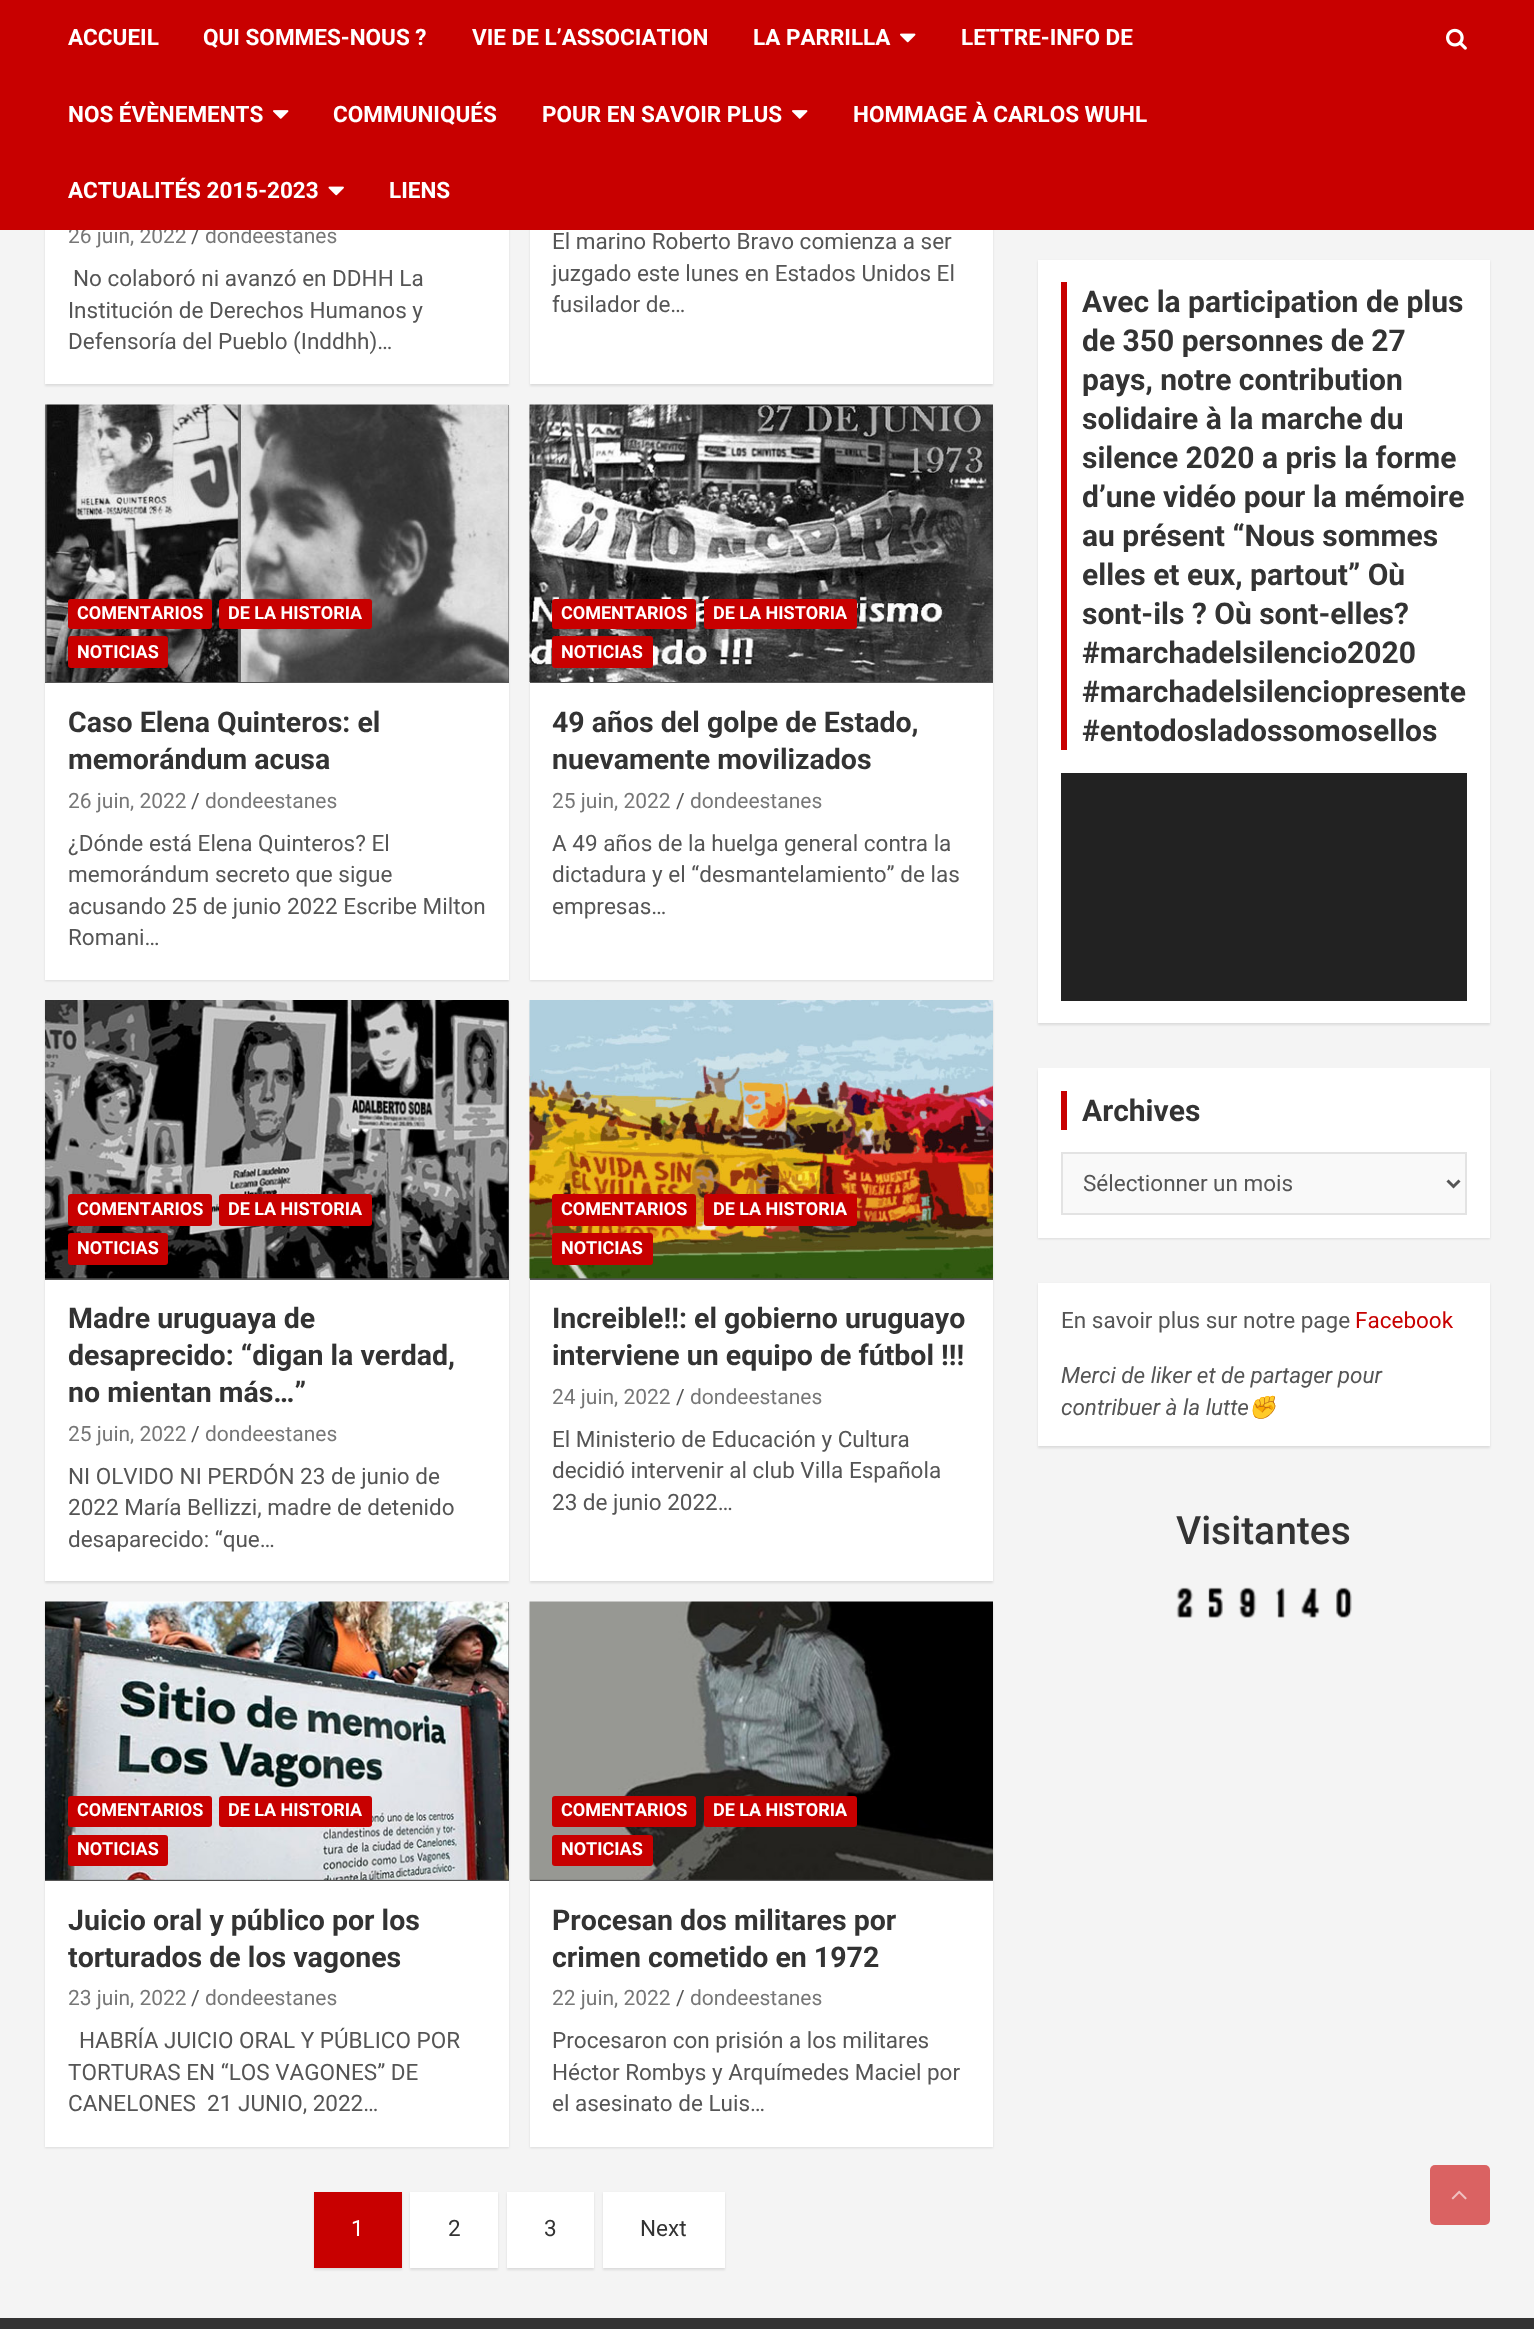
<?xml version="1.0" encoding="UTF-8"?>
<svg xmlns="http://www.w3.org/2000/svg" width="1534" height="2329">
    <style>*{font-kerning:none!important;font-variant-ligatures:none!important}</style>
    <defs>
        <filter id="blur1" x="-50%" y="-200%" width="200%" height="500%"><feGaussianBlur stdDeviation="1"/></filter>
    </defs>
    <rect width="100%" height="100%" fill="#F4F4F4"/>
    <rect x="45" y="-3" width="464" height="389" fill="#000000" fill-opacity="0.1" filter="url(#blur1)"/>
    <rect x="45" y="230" width="464" height="154" fill="#FFFFFF"/>
    <text x="68" y="243" font-family="Roboto" font-size="21" fill="#777777">26 juin, 2022</text>
    <text x="191" y="243" font-family="Roboto" font-size="21" fill="#555555">/</text>
    <text x="205" y="243" font-family="Roboto" font-size="21" fill="#777777">dondeestanes</text>
    <rect x="530" y="-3" width="463" height="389" fill="#000000" fill-opacity="0.1" filter="url(#blur1)"/>
    <rect x="0" y="0" width="1534" height="230" fill="#C80000"/>
    <text x="68" y="45" font-family="Roboto" font-size="22.5" font-weight="700" fill="#FFFFFF">ACCUEIL</text>
    <text x="203" y="45" font-family="Roboto" font-size="22.5" font-weight="700" fill="#FFFFFF">QUI SOMMES-NOUS ?</text>
    <text x="472" y="45" font-family="Roboto" font-size="22.5" font-weight="700" fill="#FFFFFF">VIE DE L’ASSOCIATION</text>
    <text x="753" y="45" font-family="Roboto" font-size="22.5" font-weight="700" fill="#FFFFFF">LA PARRILLA</text>
    <image x="900" y="33" width="16" height="10" href="img_01.png"/>
    <text x="961" y="45" font-family="Roboto" font-size="22.5" font-weight="700" fill="#FFFFFF">LETTRE-INFO DE</text>
    <text x="68" y="122" font-family="Roboto" font-size="22.5" font-weight="700" fill="#FFFFFF">NOS ÉVÈNEMENTS</text>
    <image x="273" y="110" width="16" height="9" href="img_02.png"/>
    <text x="333" y="122" font-family="Roboto" font-size="22.5" font-weight="700" fill="#FFFFFF">COMMUNIQUÉS</text>
    <text x="542" y="122" font-family="Roboto" font-size="22.5" font-weight="700" fill="#FFFFFF">POUR EN SAVOIR PLUS</text>
    <image x="792" y="110" width="16" height="9" href="img_02.png"/>
    <text x="853" y="122" font-family="Roboto" font-size="22.5" font-weight="700" fill="#FFFFFF">HOMMAGE À CARLOS WUHL</text>
    <text x="68" y="198" font-family="Roboto" font-size="22.5" font-weight="700" fill="#FFFFFF">ACTUALITÉS 2015-2023</text>
    <image x="328" y="186" width="16" height="10" href="img_03.png"/>
    <text x="389" y="198" font-family="Roboto" font-size="22.5" font-weight="700" fill="#FFFFFF">LIENS</text>
    <image x="1446" y="28" width="21" height="22" href="img_04.png"/>
    <text x="73" y="286" font-family="Roboto" font-size="22.5" fill="#555555">No colaboró ni avanzó en DDHH La</text>
    <text font-family="Roboto" font-size="22.5" fill="#555555">
        <tspan x="68" y="318">Institución de Derechos Humanos y</tspan>
        <tspan x="68" y="349">Defensoría del Pueblo (Inddhh)…</tspan>
    </text>
    <rect x="530" y="230" width="463" height="154" fill="#FFFFFF"/>
    <text font-family="Roboto" font-size="22.5" fill="#555555">
        <tspan x="552" y="249">El marino Roberto Bravo comienza a ser</tspan>
        <tspan x="552" y="281">juzgado este lunes en Estados Unidos El</tspan>
        <tspan x="552" y="312">fusilador de…</tspan>
    </text>
    <rect x="45" y="407" width="464" height="574" fill="#000000" fill-opacity="0.1" filter="url(#blur1)"/>
    <rect x="45" y="683" width="464" height="297" fill="#FFFFFF"/>
    <rect x="45" y="405" width="464" height="278" fill="#555555"/>
    <image x="45" y="404" width="464" height="278" href="img_05.png"/>
    <rect x="68" y="599" width="144" height="30" rx="3" fill="#C80000"/>
    <text x="77" y="619" font-family="Roboto" font-size="18" font-weight="700" fill="#FFFFFF">COMENTARIOS</text>
    <rect x="219" y="599" width="153" height="30" rx="3" fill="#C80000"/>
    <text x="228" y="619" font-family="Roboto" font-size="18" font-weight="700" fill="#FFFFFF">DE LA HISTORIA</text>
    <rect x="68" y="636" width="100" height="32" rx="3" fill="#C80000"/>
    <text x="77" y="658" font-family="Roboto" font-size="18" font-weight="700" fill="#FFFFFF">NOTICIAS</text>
    <text font-family="Roboto" font-size="28.5" font-weight="700" fill="#333333">
        <tspan x="68" y="732">Caso Elena Quinteros: el</tspan>
        <tspan x="68" y="769">memorándum acusa</tspan>
    </text>
    <text x="68" y="808" font-family="Roboto" font-size="21" fill="#777777">26 juin, 2022</text>
    <text x="191" y="808" font-family="Roboto" font-size="21" fill="#555555">/</text>
    <text x="205" y="808" font-family="Roboto" font-size="21" fill="#777777">dondeestanes</text>
    <text font-family="Roboto" font-size="22.5" fill="#555555">
        <tspan x="68" y="851">¿Dónde está Elena Quinteros? El</tspan>
        <tspan x="68" y="882">memorándum secreto que sigue</tspan>
        <tspan x="68" y="914">acusando 25 de junio 2022 Escribe Milton</tspan>
        <tspan x="68" y="945">Romani…</tspan>
    </text>
    <rect x="530" y="407" width="463" height="574" fill="#000000" fill-opacity="0.1" filter="url(#blur1)"/>
    <rect x="530" y="683" width="463" height="297" fill="#FFFFFF"/>
    <rect x="530" y="682" width="463" height="1" fill="#555555"/>
    <image x="529" y="404" width="464" height="278" href="img_06.png"/>
    <rect x="552" y="599" width="144" height="30" rx="3" fill="#C80000"/>
    <text x="561" y="619" font-family="Roboto" font-size="18" font-weight="700" fill="#FFFFFF">COMENTARIOS</text>
    <rect x="704" y="599" width="153" height="30" rx="3" fill="#C80000"/>
    <text x="713" y="619" font-family="Roboto" font-size="18" font-weight="700" fill="#FFFFFF">DE LA HISTORIA</text>
    <rect x="552" y="636" width="101" height="32" rx="3" fill="#C80000"/>
    <text x="561" y="658" font-family="Roboto" font-size="18" font-weight="700" fill="#FFFFFF">NOTICIAS</text>
    <text font-family="Roboto" font-size="28.5" font-weight="700" fill="#333333">
        <tspan x="552" y="732">49 años del golpe de Estado,</tspan>
        <tspan x="552" y="769">nuevamente movilizados</tspan>
    </text>
    <text x="552" y="808" font-family="Roboto" font-size="21" fill="#777777">25 juin, 2022</text>
    <text x="676" y="808" font-family="Roboto" font-size="21" fill="#555555">/</text>
    <text x="690" y="808" font-family="Roboto" font-size="21" fill="#777777">dondeestanes</text>
    <text font-family="Roboto" font-size="22.5" fill="#555555">
        <tspan x="552" y="851">A 49 años de la huelga general contra la</tspan>
        <tspan x="552" y="882">dictadura y el “desmantelamiento” de las</tspan>
        <tspan x="552" y="914">empresas…</tspan>
    </text>
    <rect x="45" y="1002" width="464" height="581" fill="#000000" fill-opacity="0.1" filter="url(#blur1)"/>
    <rect x="45" y="1280" width="464" height="301" fill="#FFFFFF"/>
    <rect x="45" y="1001" width="464" height="279" fill="#555555"/>
    <image x="45" y="1000" width="464" height="279" href="img_07.png"/>
    <rect x="68" y="1194" width="144" height="32" rx="3" fill="#C80000"/>
    <text x="77" y="1215" font-family="Roboto" font-size="18" font-weight="700" fill="#FFFFFF">COMENTARIOS</text>
    <rect x="219" y="1194" width="153" height="32" rx="3" fill="#C80000"/>
    <text x="228" y="1215" font-family="Roboto" font-size="18" font-weight="700" fill="#FFFFFF">DE LA HISTORIA</text>
    <rect x="68" y="1233" width="100" height="32" rx="3" fill="#C80000"/>
    <text x="77" y="1254" font-family="Roboto" font-size="18" font-weight="700" fill="#FFFFFF">NOTICIAS</text>
    <text font-family="Roboto" font-size="28.5" font-weight="700" fill="#333333">
        <tspan x="68" y="1328">Madre uruguaya de</tspan>
        <tspan x="68" y="1365">desaprecido: “digan la verdad,</tspan>
        <tspan x="68" y="1402">no mientan más…”</tspan>
    </text>
    <text x="68" y="1441" font-family="Roboto" font-size="21" fill="#777777">25 juin, 2022</text>
    <text x="191" y="1441" font-family="Roboto" font-size="21" fill="#555555">/</text>
    <text x="205" y="1441" font-family="Roboto" font-size="21" fill="#777777">dondeestanes</text>
    <text font-family="Roboto" font-size="22.5" fill="#555555">
        <tspan x="68" y="1484">NI OLVIDO NI PERDÓN 23 de junio de</tspan>
        <tspan x="68" y="1515">2022 María Bellizzi, madre de detenido</tspan>
        <tspan x="68" y="1547">desaparecido: “que…</tspan>
    </text>
    <rect x="530" y="1002" width="463" height="581" fill="#000000" fill-opacity="0.1" filter="url(#blur1)"/>
    <rect x="530" y="1280" width="463" height="301" fill="#FFFFFF"/>
    <rect x="530" y="1278" width="463" height="2" fill="#555555"/>
    <image x="529" y="1000" width="464" height="279" href="img_08.png"/>
    <rect x="552" y="1194" width="144" height="32" rx="3" fill="#C80000"/>
    <text x="561" y="1215" font-family="Roboto" font-size="18" font-weight="700" fill="#FFFFFF">COMENTARIOS</text>
    <rect x="704" y="1194" width="153" height="32" rx="3" fill="#C80000"/>
    <text x="713" y="1215" font-family="Roboto" font-size="18" font-weight="700" fill="#FFFFFF">DE LA HISTORIA</text>
    <rect x="552" y="1233" width="101" height="32" rx="3" fill="#C80000"/>
    <text x="561" y="1254" font-family="Roboto" font-size="18" font-weight="700" fill="#FFFFFF">NOTICIAS</text>
    <text font-family="Roboto" font-size="28.5" font-weight="700" fill="#333333">
        <tspan x="552" y="1328">Increible!!: el gobierno uruguayo</tspan>
        <tspan x="552" y="1365">interviene un equipo de fútbol !!!</tspan>
    </text>
    <text x="552" y="1404" font-family="Roboto" font-size="21" fill="#777777">24 juin, 2022</text>
    <text x="676" y="1404" font-family="Roboto" font-size="21" fill="#555555">/</text>
    <text x="690" y="1404" font-family="Roboto" font-size="21" fill="#777777">dondeestanes</text>
    <text font-family="Roboto" font-size="22.5" fill="#555555">
        <tspan x="552" y="1447">El Ministerio de Educación y Cultura</tspan>
        <tspan x="552" y="1478">decidió intervenir al club Villa Española</tspan>
        <tspan x="552" y="1510">23 de junio 2022…</tspan>
    </text>
    <rect x="45" y="1604" width="464" height="544" fill="#000000" fill-opacity="0.1" filter="url(#blur1)"/>
    <rect x="45" y="1881" width="464" height="266" fill="#FFFFFF"/>
    <rect x="45" y="1602" width="464" height="279" fill="#555555"/>
    <image x="45" y="1601" width="464" height="279" href="img_09.png"/>
    <rect x="68" y="1796" width="144" height="31" rx="3" fill="#C80000"/>
    <text x="77" y="1816" font-family="Roboto" font-size="18" font-weight="700" fill="#FFFFFF">COMENTARIOS</text>
    <rect x="219" y="1796" width="153" height="31" rx="3" fill="#C80000"/>
    <text x="228" y="1816" font-family="Roboto" font-size="18" font-weight="700" fill="#FFFFFF">DE LA HISTORIA</text>
    <rect x="68" y="1835" width="100" height="31" rx="3" fill="#C80000"/>
    <text x="77" y="1855" font-family="Roboto" font-size="18" font-weight="700" fill="#FFFFFF">NOTICIAS</text>
    <text font-family="Roboto" font-size="28.5" font-weight="700" fill="#333333">
        <tspan x="68" y="1930">Juicio oral y público por los</tspan>
        <tspan x="68" y="1967">torturados de los vagones</tspan>
    </text>
    <text x="68" y="2005" font-family="Roboto" font-size="21" fill="#777777">23 juin, 2022</text>
    <text x="191" y="2005" font-family="Roboto" font-size="21" fill="#555555">/</text>
    <text x="205" y="2005" font-family="Roboto" font-size="21" fill="#777777">dondeestanes</text>
    <text x="79" y="2048" font-family="Roboto" font-size="22.5" fill="#555555">HABRÍA JUICIO ORAL Y PÚBLICO POR</text>
    <text font-family="Roboto" font-size="22.5" fill="#555555" xml:space="preserve"><tspan x="68" y="2080">TORTURAS EN “LOS VAGONES” DE</tspan><tspan x="68" y="2111">CANELONES  21 JUNIO, 2022…</tspan></text>
    <rect x="530" y="1604" width="463" height="544" fill="#000000" fill-opacity="0.1" filter="url(#blur1)"/>
    <rect x="530" y="1881" width="463" height="266" fill="#FFFFFF"/>
    <rect x="530" y="1879" width="463" height="2" fill="#555555"/>
    <image x="529" y="1601" width="464" height="279" href="img_10.png"/>
    <rect x="552" y="1796" width="144" height="31" rx="3" fill="#C80000"/>
    <text x="561" y="1816" font-family="Roboto" font-size="18" font-weight="700" fill="#FFFFFF">COMENTARIOS</text>
    <rect x="704" y="1796" width="153" height="31" rx="3" fill="#C80000"/>
    <text x="713" y="1816" font-family="Roboto" font-size="18" font-weight="700" fill="#FFFFFF">DE LA HISTORIA</text>
    <rect x="552" y="1835" width="101" height="31" rx="3" fill="#C80000"/>
    <text x="561" y="1855" font-family="Roboto" font-size="18" font-weight="700" fill="#FFFFFF">NOTICIAS</text>
    <text font-family="Roboto" font-size="28.5" font-weight="700" fill="#333333">
        <tspan x="552" y="1930">Procesan dos militares por</tspan>
        <tspan x="552" y="1967">crimen cometido en 1972</tspan>
    </text>
    <text x="552" y="2005" font-family="Roboto" font-size="21" fill="#777777">22 juin, 2022</text>
    <text x="676" y="2005" font-family="Roboto" font-size="21" fill="#555555">/</text>
    <text x="690" y="2005" font-family="Roboto" font-size="21" fill="#777777">dondeestanes</text>
    <text font-family="Roboto" font-size="22.5" fill="#555555">
        <tspan x="552" y="2048">Procesaron con prisión a los militares</tspan>
        <tspan x="552" y="2080">Héctor Rombys y Arquímedes Maciel por</tspan>
        <tspan x="552" y="2111">el asesinato de Luis…</tspan>
    </text>
    <rect x="314" y="2193" width="88" height="77" fill="#000000" fill-opacity="0.1" filter="url(#blur1)"/>
    <rect x="314" y="2192" width="88" height="76" fill="#C80000"/>
    <text x="351" y="2236" font-family="Roboto" font-size="22.5" fill="#FFFFFF">1</text>
    <rect x="410" y="2193" width="88" height="77" fill="#000000" fill-opacity="0.1" filter="url(#blur1)"/>
    <rect x="410" y="2192" width="88" height="76" fill="#FFFFFF"/>
    <text x="448" y="2236" font-family="Roboto" font-size="22.5" fill="#333333">2</text>
    <rect x="507" y="2193" width="87" height="77" fill="#000000" fill-opacity="0.1" filter="url(#blur1)"/>
    <rect x="507" y="2192" width="87" height="76" fill="#FFFFFF"/>
    <text x="544" y="2236" font-family="Roboto" font-size="22.5" fill="#333333">3</text>
    <rect x="603" y="2193" width="122" height="77" fill="#000000" fill-opacity="0.1" filter="url(#blur1)"/>
    <rect x="603" y="2192" width="122" height="76" fill="#FFFFFF"/>
    <text x="640" y="2236" font-family="Roboto" font-size="22.5" fill="#333333">Next</text>
    <rect x="1038" y="261" width="452" height="764" fill="#000000" fill-opacity="0.1" filter="url(#blur1)"/>
    <rect x="1038" y="260" width="452" height="763" fill="#FFFFFF"/>
    <rect x="1061" y="282" width="6" height="468" fill="#C80000"/>
    <text font-family="Roboto" font-size="30" font-weight="700" fill="#333333">
        <tspan x="1082" y="312">Avec la participation de plus</tspan>
        <tspan x="1082" y="351">de 350 personnes de 27</tspan>
        <tspan x="1082" y="390">pays, notre contribution</tspan>
        <tspan x="1082" y="429">solidaire à la marche du</tspan>
        <tspan x="1082" y="468">silence 2020 a pris la forme</tspan>
        <tspan x="1082" y="507">d’une vidéo pour la mémoire</tspan>
        <tspan x="1082" y="546">au présent “Nous sommes</tspan>
        <tspan x="1082" y="585">elles et eux, partout” Où</tspan>
        <tspan x="1082" y="624">sont-ils ? Où sont-elles?</tspan>
        <tspan x="1082" y="663">#marchadelsilencio2020</tspan>
        <tspan x="1082" y="702">#marchadelsilenciopresente</tspan>
        <tspan x="1082" y="741">#entodosladossomosellos</tspan>
    </text>
    <rect x="1061" y="773" width="406" height="228" fill="#222222"/>
    <rect x="1038" y="1070" width="452" height="169" fill="#000000" fill-opacity="0.1" filter="url(#blur1)"/>
    <rect x="1038" y="1068" width="452" height="170" fill="#FFFFFF"/>
    <rect x="1061" y="1091" width="6" height="39" fill="#C80000"/>
    <text x="1082" y="1121" font-family="Roboto" font-size="30" font-weight="700" fill="#333333">Archives</text>
    <rect x="1062" y="1153" width="404" height="61" fill="#F9F9F9" stroke="#E3E3E3" stroke-width="2"/>
    <path d="M 1447.5 1180.5 L 1453.5 1186.5 L 1459.5 1180.5" fill="none" stroke="#555555" stroke-width="3"/>
    <text x="1083" y="1191" font-family="Roboto" font-size="22.5" fill="#555555">Sélectionner un mois</text>
    <rect x="1038" y="1284" width="452" height="164" fill="#000000" fill-opacity="0.1" filter="url(#blur1)"/>
    <rect x="1038" y="1283" width="452" height="163" fill="#FFFFFF"/>
    <text x="1061" y="1328" font-family="Roboto" font-size="22.5" fill="#555555">En savoir plus sur notre page</text>
    <text x="1355" y="1328" font-family="Roboto" font-size="22.5" fill="#C80000">Facebook</text>
    <text font-family="Roboto" font-size="22.5" font-style="italic" fill="#555555">
        <tspan x="1061" y="1383">Merci de liker et de partager pour</tspan>
        <tspan x="1061" y="1415">contribuer à la lutte</tspan>
    </text>
    <text x="1248" y="1415" font-family="Noto Color Emoji" font-size="22.5" font-style="italic" fill="#555555">✊</text>
    <text x="1176" y="1544" font-family="Roboto" font-size="39" font-weight="500" fill="#333333">Visitantes</text>
    <image x="1176" y="1587" width="18" height="31" href="img_11.png"/>
    <image x="1208" y="1587" width="15" height="31" href="img_12.png"/>
    <image x="1238" y="1587" width="19" height="31" href="img_13.png"/>
    <image x="1276" y="1587" width="9" height="31" href="img_14.png"/>
    <image x="1301" y="1587" width="19" height="31" href="img_15.png"/>
    <image x="1336" y="1587" width="16" height="31" href="img_16.png"/>
    <rect x="1430" y="2165" width="60" height="60" rx="5" fill="#DA6262"/>
    <image x="1451" y="2190" width="16" height="10" href="img_17.png"/>
    <rect x="0" y="2318" width="1534" height="11" fill="#333333"/>
</svg>
